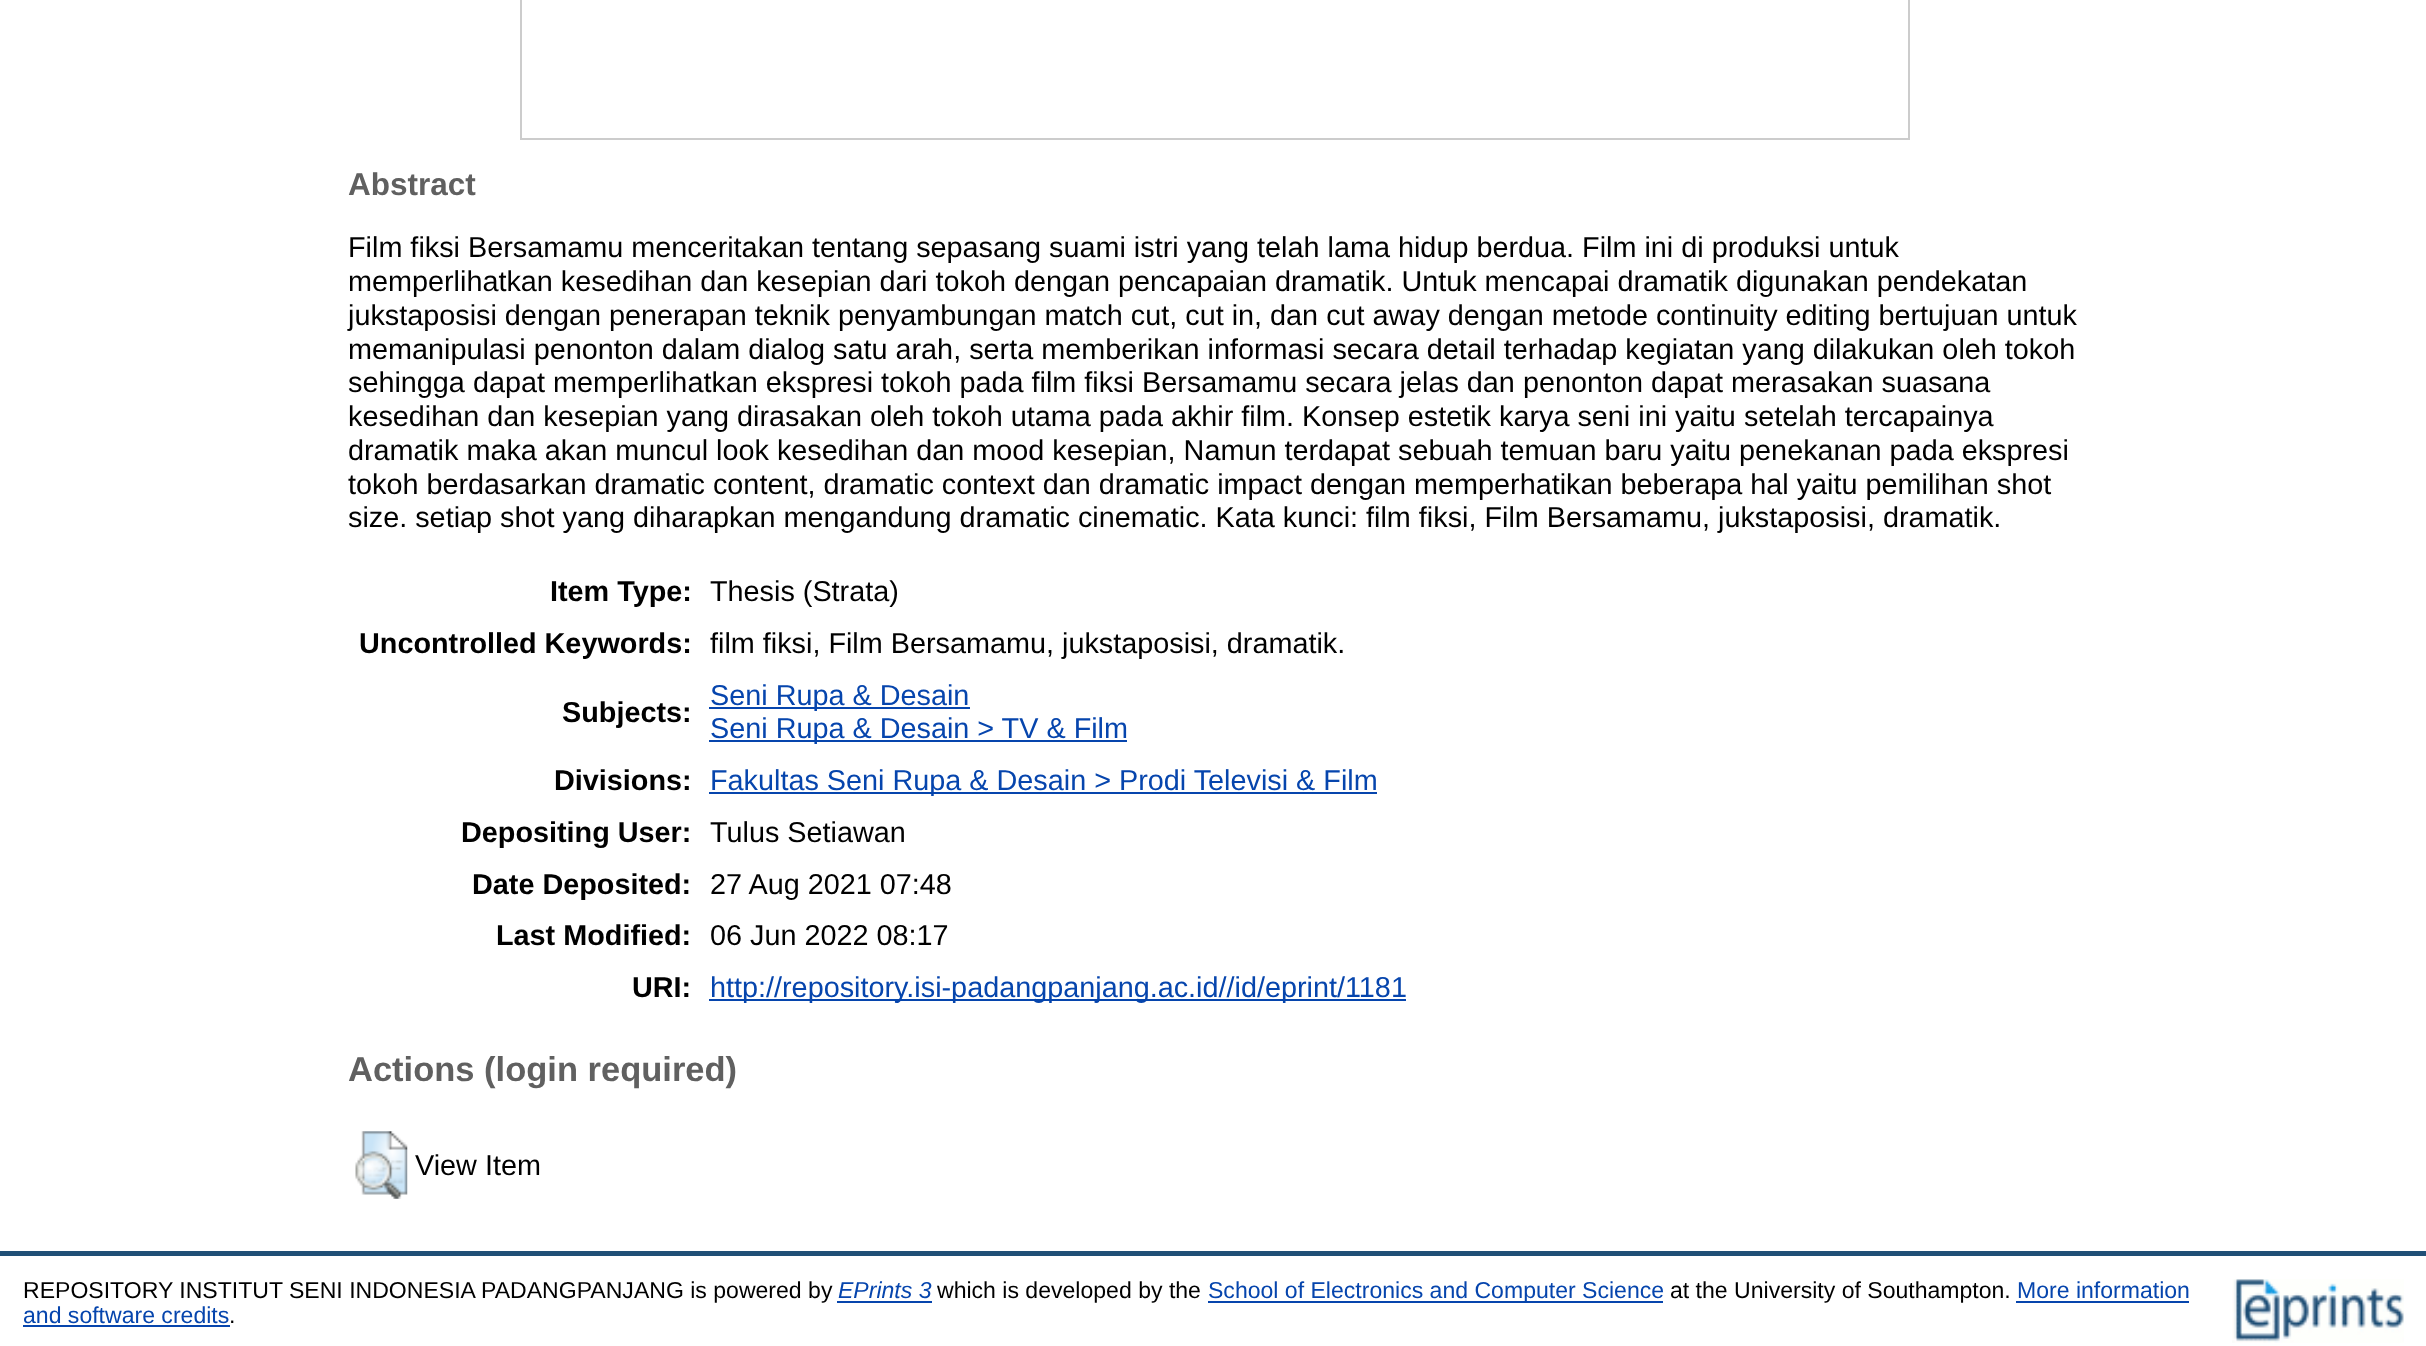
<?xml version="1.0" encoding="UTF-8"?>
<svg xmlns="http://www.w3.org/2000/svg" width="2426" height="1346">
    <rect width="100%" height="100%" fill="#FFFFFF"/>
    <rect x="521" y="-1" width="1388" height="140" fill="none" stroke="#CCCCCC" stroke-width="2"/>
    <text x="348" y="195" font-family="Liberation Sans" font-size="31.5" font-weight="700" fill="#606060">Abstract</text>
    <text font-family="Liberation Sans" font-size="28.8" fill="#000000">
        <tspan x="348" y="257">Film fiksi Bersamamu menceritakan tentang sepasang suami istri yang telah lama hidup berdua. Film ini di produksi untuk</tspan>
        <tspan x="348" y="291">memperlihatkan kesedihan dan kesepian dari tokoh dengan pencapaian dramatik. Untuk mencapai dramatik digunakan pendekatan</tspan>
        <tspan x="348" y="325">jukstaposisi dengan penerapan teknik penyambungan match cut, cut in, dan cut away dengan metode continuity editing bertujuan untuk</tspan>
        <tspan x="348" y="359">memanipulasi penonton dalam dialog satu arah, serta memberikan informasi secara detail terhadap kegiatan yang dilakukan oleh tokoh</tspan>
        <tspan x="348" y="392">sehingga dapat memperlihatkan ekspresi tokoh pada film fiksi Bersamamu secara jelas dan penonton dapat merasakan suasana</tspan>
        <tspan x="348" y="426">kesedihan dan kesepian yang dirasakan oleh tokoh utama pada akhir film. Konsep estetik karya seni ini yaitu setelah tercapainya</tspan>
        <tspan x="348" y="460">dramatik maka akan muncul look kesedihan dan mood kesepian, Namun terdapat sebuah temuan baru yaitu penekanan pada ekspresi</tspan>
        <tspan x="348" y="494">tokoh berdasarkan dramatic content, dramatic context dan dramatic impact dengan memperhatikan beberapa hal yaitu pemilihan shot</tspan>
        <tspan x="348" y="527">size. setiap shot yang diharapkan mengandung dramatic cinematic. Kata kunci: film fiksi, Film Bersamamu, jukstaposisi, dramatik.</tspan>
    </text>
    <text x="550" y="601" font-family="Liberation Sans" font-size="28.8" font-weight="700" fill="#000000">Item Type:</text>
    <text x="710" y="601" font-family="Liberation Sans" font-size="28.8" fill="#000000">Thesis (Strata)</text>
    <text x="359" y="653" font-family="Liberation Sans" font-size="28.8" font-weight="700" fill="#000000">Uncontrolled Keywords:</text>
    <text x="710" y="653" font-family="Liberation Sans" font-size="28.8" fill="#000000">film fiksi, Film Bersamamu, jukstaposisi, dramatik.</text>
    <text x="562" y="722" font-family="Liberation Sans" font-size="28.8" font-weight="700" fill="#000000">Subjects:</text>
    <rect x="709" y="707" width="261" height="2" fill="#0645AD"/>
    <text x="710" y="705" font-family="Liberation Sans" font-size="28.8" fill="#0645AD">Seni Rupa &amp; Desain</text>
    <rect x="709" y="740" width="418" height="2" fill="#0645AD"/>
    <text x="710" y="738" font-family="Liberation Sans" font-size="28.8" fill="#0645AD">Seni Rupa &amp; Desain &gt; TV &amp; Film</text>
    <text x="554" y="790" font-family="Liberation Sans" font-size="28.8" font-weight="700" fill="#000000">Divisions:</text>
    <rect x="709" y="792" width="668" height="2" fill="#0645AD"/>
    <text x="710" y="790" font-family="Liberation Sans" font-size="28.8" fill="#0645AD">Fakultas Seni Rupa &amp; Desain &gt; Prodi Televisi &amp; Film</text>
    <text x="461" y="842" font-family="Liberation Sans" font-size="28.8" font-weight="700" fill="#000000">Depositing User:</text>
    <text x="710" y="842" font-family="Liberation Sans" font-size="28.8" fill="#000000">Tulus Setiawan</text>
    <text x="472" y="894" font-family="Liberation Sans" font-size="28.8" font-weight="700" fill="#000000">Date Deposited:</text>
    <text x="710" y="894" font-family="Liberation Sans" font-size="28.8" fill="#000000">27 Aug 2021 07:48</text>
    <text x="496" y="945" font-family="Liberation Sans" font-size="28.8" font-weight="700" fill="#000000">Last Modified:</text>
    <text x="710" y="945" font-family="Liberation Sans" font-size="28.8" fill="#000000">06 Jun 2022 08:17</text>
    <text x="632" y="997" font-family="Liberation Sans" font-size="28.8" font-weight="700" fill="#000000">URI:</text>
    <rect x="709" y="999" width="697" height="2" fill="#0645AD"/>
    <text x="710" y="997" font-family="Liberation Sans" font-size="28.8" fill="#0645AD">http://repository.isi-padangpanjang.ac.id//id/eprint/1181</text>
    <text x="348" y="1081" font-family="Liberation Sans" font-size="34.5" font-weight="700" fill="#606060">Actions (login required)</text>
    <image x="355" y="1131" width="53" height="68" href="img_01.png"/>
    <text x="415" y="1175" font-family="Liberation Sans" font-size="28.8" fill="#000000">View Item</text>
    <rect x="0" y="1251" width="2426" height="5" fill="#204F76"/>
    <text x="23" y="1298" font-family="Liberation Sans" font-size="23.05" fill="#000000">REPOSITORY INSTITUT SENI INDONESIA PADANGPANJANG is powered by</text>
    <text x="838" y="1298" font-family="Liberation Sans" font-size="23.05" font-style="italic" fill="#0645AD">EPrints 3</text>
    <rect x="837" y="1301" width="95" height="2" fill="#0645AD"/>
    <text x="937" y="1298" font-family="Liberation Sans" font-size="23.05" fill="#000000">which is developed by the</text>
    <rect x="1208" y="1301" width="455" height="2" fill="#0645AD"/>
    <text x="1208" y="1298" font-family="Liberation Sans" font-size="23.05" fill="#0645AD">School of Electronics and Computer Science</text>
    <text x="1670" y="1298" font-family="Liberation Sans" font-size="23.05" fill="#000000">at the University of Southampton.</text>
    <text x="2017" y="1298" font-family="Liberation Sans" font-size="23.05" fill="#0645AD">More information</text>
    <rect x="2016" y="1301" width="173" height="2" fill="#0645AD"/>
    <text x="23" y="1323" font-family="Liberation Sans" font-size="23.05" fill="#0645AD">and software credits</text>
    <rect x="23" y="1325" width="207" height="2" fill="#0645AD"/>
    <text x="229" y="1323" font-family="Liberation Sans" font-size="23.05" fill="#000000">.</text>
    <image x="2232" y="1279" width="172" height="64" href="img_02.png"/>
</svg>
